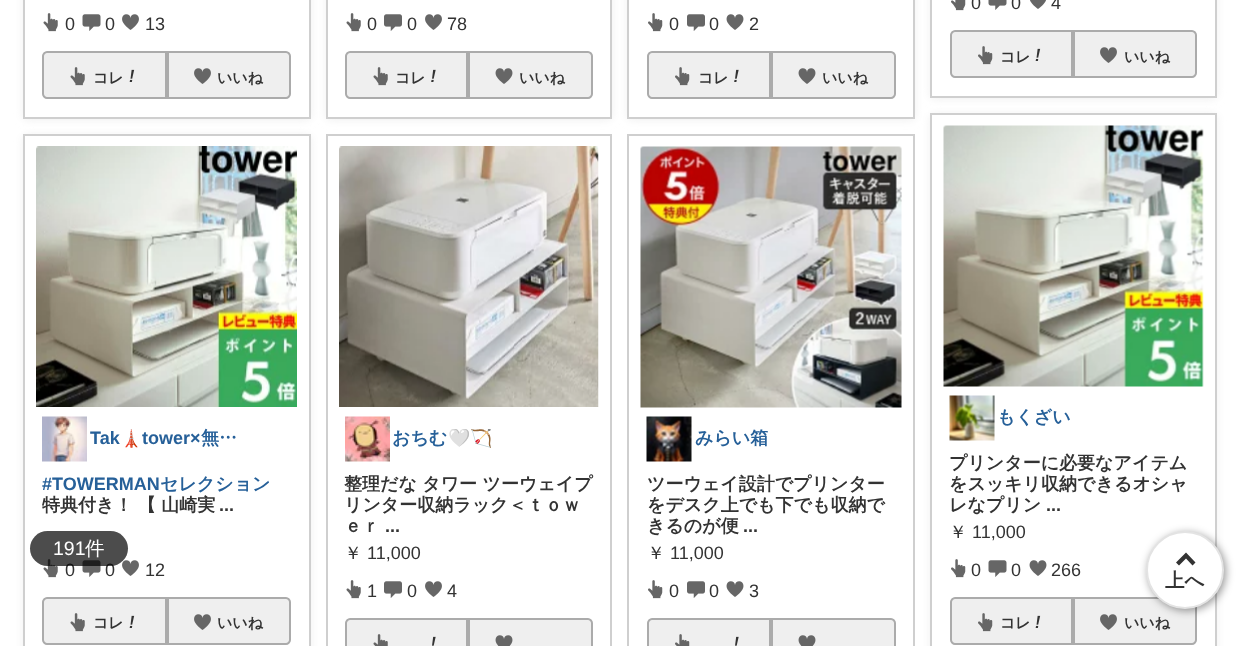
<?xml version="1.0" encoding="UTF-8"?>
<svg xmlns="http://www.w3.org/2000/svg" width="1239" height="646">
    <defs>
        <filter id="blur1" x="-50%" y="-200%" width="200%" height="500%"><feGaussianBlur stdDeviation="4.5"/></filter>
        <clipPath id="clip1"><rect x="90" y="429" width="150" height="20"/></clipPath>
        <clipPath id="clip2"><rect x="393" y="429" width="150" height="20"/></clipPath>
        <filter id="blur2" x="-50%" y="-200%" width="200%" height="500%"><feGaussianBlur stdDeviation="4"/></filter>
    </defs>
    <rect width="100%" height="100%" fill="#FFFFFF"/>
    <rect x="23" y="-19" width="288" height="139" rx="5" fill="#EFEFEF" filter="url(#blur1)"/>
    <rect x="24" y="-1" width="286" height="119" fill="#FFFFFF" stroke="#CFCFCF" stroke-width="2"/>
    <image x="43" y="13" width="15" height="19" href="img_01.png"/>
    <text x="65" y="30" font-family="Liberation Sans" font-size="18" fill="#333333">0</text>
    <image x="82" y="14" width="19" height="17" href="img_02.png"/>
    <text x="105" y="30" font-family="Liberation Sans" font-size="18" fill="#333333">0</text>
    <image x="122" y="14" width="17" height="16" href="img_03.png"/>
    <text x="145" y="30" font-family="Liberation Sans" font-size="18" fill="#333333">13</text>
    <path d="M 47 52 H 166 V 98 H 47 C 45 98 43 96 43 94 V 56 C 43 54 45 52 47 52 Z" fill="#EFEFEF" stroke="#ABABAB" stroke-width="2"/>
    <image x="70" y="67" width="15" height="19" href="img_04.png"/>
    <text x="93" y="83" font-family="WenQuanYi Zen Hei" font-size="15" font-weight="700" fill="#333333">コレ</text>
    <image x="129" y="69" width="6" height="13" href="img_05.png"/>
    <path d="M 168 52 H 286 C 288 52 290 54 290 56 V 94 C 290 96 288 98 286 98 H 168 Z" fill="#EFEFEF" stroke="#ABABAB" stroke-width="2"/>
    <image x="194" y="68" width="17" height="16" href="img_06.png"/>
    <text x="217" y="83" font-family="WenQuanYi Zen Hei" font-size="15" font-weight="700" fill="#333333">いいね</text>
    <rect x="23" y="135" width="288" height="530" rx="5" fill="#EFEFEF" filter="url(#blur1)"/>
    <rect x="24" y="135" width="286" height="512" fill="#FFFFFF" stroke="#CFCFCF" stroke-width="2"/>
    <image x="36" y="146" width="261" height="261" href="img_07.png"/>
    <image x="42" y="416" width="45" height="46" href="img_08.png"/>
    <text x="90" y="444" font-family="Liberation Sans" font-size="18" font-weight="700" fill="#266099">Tak</text>
    <g clip-path="url(#clip1)">
        <text x="120" y="444" font-family="Noto Color Emoji" font-size="18" font-weight="700" fill="#266099">🗼</text>
    </g>
    <text x="142" y="444" font-family="Liberation Sans" font-size="18" font-weight="700" fill="#266099">tower×</text>
    <text x="201" y="444" font-family="WenQuanYi Zen Hei" font-size="18" font-weight="700" fill="#266099">無…</text>
    <text x="42" y="490" font-family="Liberation Sans" font-size="18" font-weight="700" fill="#266099">#TOWERMAN</text>
    <text x="160" y="490" font-family="WenQuanYi Zen Hei" font-size="18" font-weight="700" fill="#266099">セレクション</text>
    <text x="42" y="511" font-family="WenQuanYi Zen Hei" font-size="18" font-weight="700" fill="#333333">特典付き！ 【 山崎実</text>
    <text x="219" y="511" font-family="Liberation Sans" font-size="18" font-weight="700" fill="#333333">...</text>
    <image x="43" y="559" width="15" height="19" href="img_01.png"/>
    <text x="65" y="576" font-family="Liberation Sans" font-size="18" fill="#333333">0</text>
    <image x="82" y="560" width="19" height="17" href="img_02.png"/>
    <text x="105" y="576" font-family="Liberation Sans" font-size="18" fill="#333333">0</text>
    <image x="122" y="560" width="17" height="16" href="img_03.png"/>
    <text x="145" y="576" font-family="Liberation Sans" font-size="18" fill="#333333">12</text>
    <path d="M 47 598 H 166 V 644 H 47 C 45 644 43 642 43 640 V 602 C 43 600 45 598 47 598 Z" fill="#EFEFEF" stroke="#ABABAB" stroke-width="2"/>
    <image x="70" y="613" width="15" height="19" href="img_04.png"/>
    <text x="93" y="628" font-family="WenQuanYi Zen Hei" font-size="15" font-weight="700" fill="#333333">コレ</text>
    <image x="129" y="615" width="6" height="13" href="img_05.png"/>
    <path d="M 168 598 H 286 C 288 598 290 600 290 602 V 640 C 290 642 288 644 286 644 H 168 Z" fill="#EFEFEF" stroke="#ABABAB" stroke-width="2"/>
    <image x="194" y="614" width="17" height="16" href="img_06.png"/>
    <text x="217" y="628" font-family="WenQuanYi Zen Hei" font-size="15" font-weight="700" fill="#333333">いいね</text>
    <rect x="326" y="-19" width="286" height="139" rx="5" fill="#EFEFEF" filter="url(#blur1)"/>
    <rect x="327" y="-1" width="284" height="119" fill="#FFFFFF" stroke="#CFCFCF" stroke-width="2"/>
    <image x="346" y="13" width="15" height="19" href="img_01.png"/>
    <text x="367" y="30" font-family="Liberation Sans" font-size="18" fill="#333333">0</text>
    <image x="384" y="14" width="18" height="17" href="img_09.png"/>
    <text x="407" y="30" font-family="Liberation Sans" font-size="18" fill="#333333">0</text>
    <image x="425" y="14" width="17" height="16" href="img_03.png"/>
    <text x="447" y="30" font-family="Liberation Sans" font-size="18" fill="#333333">78</text>
    <path d="M 350 52 H 467 V 98 H 350 C 348 98 346 96 346 94 V 56 C 346 54 348 52 350 52 Z" fill="#EFEFEF" stroke="#ABABAB" stroke-width="2"/>
    <image x="373" y="67" width="15" height="19" href="img_04.png"/>
    <text x="395" y="83" font-family="WenQuanYi Zen Hei" font-size="15" font-weight="700" fill="#333333">コレ</text>
    <image x="431" y="69" width="5" height="13" href="img_10.png"/>
    <path d="M 469 52 H 588 C 590 52 592 54 592 56 V 94 C 592 96 590 98 588 98 H 469 Z" fill="#EFEFEF" stroke="#ABABAB" stroke-width="2"/>
    <image x="495" y="68" width="18" height="16" href="img_11.png"/>
    <text x="519" y="83" font-family="WenQuanYi Zen Hei" font-size="15" font-weight="700" fill="#333333">いいね</text>
    <rect x="327" y="135" width="284" height="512" fill="none" stroke="#CFCFCF" stroke-width="2"/>
    <image x="339" y="146" width="260" height="261" href="img_12.png"/>
    <image x="345" y="416" width="45" height="46" href="img_13.png"/>
    <text x="392" y="444" font-family="WenQuanYi Zen Hei" font-size="18" font-weight="700" fill="#266099">おちむ</text>
    <g clip-path="url(#clip2)">
        <text x="448" y="444" font-family="Noto Color Emoji" font-size="18" font-weight="700" fill="#266099">🤍🏹</text>
    </g>
    <text font-family="WenQuanYi Zen Hei" font-size="18" font-weight="700" fill="#333333">
        <tspan x="344" y="490">整理だな タワー ツーウェイプ</tspan>
        <tspan x="344" y="511">リンター収納ラック＜ｔｏｗ</tspan>
        <tspan x="344" y="532">ｅｒ</tspan>
    </text>
    <text x="385" y="532" font-family="Liberation Sans" font-size="18" font-weight="700" fill="#333333">...</text>
    <text x="344" y="559" font-family="WenQuanYi Zen Hei" font-size="18" font-weight="500" fill="#333333">￥</text>
    <text x="367" y="559" font-family="Liberation Sans" font-size="18" fill="#333333">11,000</text>
    <image x="346" y="580" width="15" height="19" href="img_01.png"/>
    <text x="367" y="597" font-family="Liberation Sans" font-size="18" fill="#333333">1</text>
    <image x="384" y="581" width="18" height="17" href="img_09.png"/>
    <text x="407" y="597" font-family="Liberation Sans" font-size="18" fill="#333333">0</text>
    <image x="425" y="581" width="17" height="16" href="img_03.png"/>
    <text x="447" y="597" font-family="Liberation Sans" font-size="18" fill="#333333">4</text>
    <path d="M 350 619 H 467 V 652 H 350 C 348 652 346 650 346 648 V 623 C 346 621 348 619 350 619 Z" fill="#EFEFEF" stroke="#ABABAB" stroke-width="2"/>
    <image x="373" y="634" width="15" height="12" href="img_14.png"/>
    <image x="432" y="636" width="4" height="10" href="img_15.png"/>
    <path d="M 469 619 H 588 C 590 619 592 621 592 623 V 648 C 592 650 590 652 588 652 H 469 Z" fill="#EFEFEF" stroke="#ABABAB" stroke-width="2"/>
    <image x="495" y="635" width="18" height="11" href="img_16.png"/>
    <rect x="627" y="-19" width="288" height="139" rx="5" fill="#EFEFEF" filter="url(#blur1)"/>
    <rect x="628" y="-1" width="286" height="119" fill="#FFFFFF" stroke="#CFCFCF" stroke-width="2"/>
    <image x="648" y="13" width="15" height="19" href="img_17.png"/>
    <text x="669" y="30" font-family="Liberation Sans" font-size="18" fill="#333333">0</text>
    <image x="687" y="14" width="18" height="17" href="img_09.png"/>
    <text x="709" y="30" font-family="Liberation Sans" font-size="18" fill="#333333">0</text>
    <image x="726" y="14" width="18" height="16" href="img_18.png"/>
    <text x="749" y="30" font-family="Liberation Sans" font-size="18" fill="#333333">2</text>
    <path d="M 652 52 H 770 V 98 H 652 C 650 98 648 96 648 94 V 56 C 648 54 650 52 652 52 Z" fill="#EFEFEF" stroke="#ABABAB" stroke-width="2"/>
    <image x="675" y="67" width="15" height="19" href="img_19.png"/>
    <text x="698" y="83" font-family="WenQuanYi Zen Hei" font-size="15" font-weight="700" fill="#333333">コレ</text>
    <image x="734" y="69" width="5" height="13" href="img_10.png"/>
    <path d="M 772 52 H 891 C 893 52 895 54 895 56 V 94 C 895 96 893 98 891 98 H 772 Z" fill="#EFEFEF" stroke="#ABABAB" stroke-width="2"/>
    <image x="798" y="68" width="18" height="16" href="img_11.png"/>
    <text x="822" y="83" font-family="WenQuanYi Zen Hei" font-size="15" font-weight="700" fill="#333333">いいね</text>
    <rect x="628" y="135" width="286" height="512" fill="none" stroke="#CFCFCF" stroke-width="2"/>
    <image x="640" y="146" width="262" height="262" href="img_20.png"/>
    <image x="646" y="416" width="46" height="46" href="img_21.png"/>
    <text x="695" y="444" font-family="WenQuanYi Zen Hei" font-size="18" font-weight="700" fill="#266099">みらい箱</text>
    <text font-family="WenQuanYi Zen Hei" font-size="18" font-weight="700" fill="#333333">
        <tspan x="647" y="490">ツーウェイ設計でプリンター</tspan>
        <tspan x="647" y="511">をデスク上でも下でも収納で</tspan>
        <tspan x="647" y="532">きるのが便</tspan>
    </text>
    <text x="743" y="532" font-family="Liberation Sans" font-size="18" font-weight="700" fill="#333333">...</text>
    <text x="647" y="559" font-family="WenQuanYi Zen Hei" font-size="18" font-weight="500" fill="#333333">￥</text>
    <text x="670" y="559" font-family="Liberation Sans" font-size="18" fill="#333333">11,000</text>
    <image x="648" y="580" width="15" height="19" href="img_17.png"/>
    <text x="669" y="597" font-family="Liberation Sans" font-size="18" fill="#333333">0</text>
    <image x="687" y="581" width="18" height="17" href="img_09.png"/>
    <text x="709" y="597" font-family="Liberation Sans" font-size="18" fill="#333333">0</text>
    <image x="726" y="581" width="18" height="16" href="img_18.png"/>
    <text x="749" y="597" font-family="Liberation Sans" font-size="18" fill="#333333">3</text>
    <path d="M 652 619 H 770 V 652 H 652 C 650 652 648 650 648 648 V 623 C 648 621 650 619 652 619 Z" fill="#EFEFEF" stroke="#ABABAB" stroke-width="2"/>
    <image x="675" y="634" width="15" height="12" href="img_22.png"/>
    <image x="735" y="636" width="4" height="10" href="img_15.png"/>
    <path d="M 772 619 H 891 C 893 619 895 621 895 623 V 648 C 895 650 893 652 891 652 H 772 Z" fill="#EFEFEF" stroke="#ABABAB" stroke-width="2"/>
    <image x="798" y="635" width="18" height="11" href="img_16.png"/>
    <rect x="930" y="-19" width="287" height="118" rx="5" fill="#EFEFEF" filter="url(#blur1)"/>
    <rect x="931" y="-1" width="285" height="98" fill="#FFFFFF" stroke="#CFCFCF" stroke-width="2"/>
    <image x="951" y="0" width="15" height="11" href="img_23.png"/>
    <text x="971" y="9" font-family="Liberation Sans" font-size="18" fill="#333333">0</text>
    <image x="988" y="0" width="19" height="10" href="img_24.png"/>
    <text x="1011" y="9" font-family="Liberation Sans" font-size="18" fill="#333333">0</text>
    <image x="1030" y="0" width="16" height="9" href="img_25.png"/>
    <text x="1051" y="9" font-family="Liberation Sans" font-size="18" fill="#333333">4</text>
    <path d="M 955 31 H 1072 V 77 H 955 C 953 77 951 75 951 73 V 35 C 951 33 953 31 955 31 Z" fill="#EFEFEF" stroke="#ABABAB" stroke-width="2"/>
    <image x="978" y="46" width="15" height="19" href="img_19.png"/>
    <text x="1000" y="62" font-family="WenQuanYi Zen Hei" font-size="15" font-weight="700" fill="#333333">コレ</text>
    <image x="1035" y="48" width="6" height="13" href="img_05.png"/>
    <path d="M 1074 31 H 1192 C 1194 31 1196 33 1196 35 V 73 C 1196 75 1194 77 1192 77 H 1074 Z" fill="#EFEFEF" stroke="#ABABAB" stroke-width="2"/>
    <image x="1100" y="47" width="17" height="16" href="img_06.png"/>
    <text x="1124" y="62" font-family="WenQuanYi Zen Hei" font-size="15" font-weight="700" fill="#333333">いいね</text>
    <rect x="930" y="114" width="287" height="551" rx="5" fill="#EFEFEF" filter="url(#blur1)"/>
    <rect x="931" y="114" width="285" height="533" fill="#FFFFFF" stroke="#CFCFCF" stroke-width="2"/>
    <image x="943" y="125" width="261" height="262" href="img_26.png"/>
    <image x="949" y="395" width="46" height="46" href="img_27.png"/>
    <text x="997" y="423" font-family="WenQuanYi Zen Hei" font-size="18" font-weight="700" fill="#266099">もくざい</text>
    <text font-family="WenQuanYi Zen Hei" font-size="18" font-weight="700" fill="#333333">
        <tspan x="949" y="469">プリンターに必要なアイテム</tspan>
        <tspan x="949" y="490">をスッキリ収納できるオシャ</tspan>
        <tspan x="949" y="511">レなプリン</tspan>
    </text>
    <text x="1046" y="511" font-family="Liberation Sans" font-size="18" font-weight="700" fill="#333333">...</text>
    <text x="949" y="538" font-family="WenQuanYi Zen Hei" font-size="18" font-weight="500" fill="#333333">￥</text>
    <text x="972" y="538" font-family="Liberation Sans" font-size="18" fill="#333333">11,000</text>
    <image x="951" y="559" width="15" height="19" href="img_17.png"/>
    <text x="971" y="576" font-family="Liberation Sans" font-size="18" fill="#333333">0</text>
    <image x="988" y="560" width="19" height="17" href="img_02.png"/>
    <text x="1011" y="576" font-family="Liberation Sans" font-size="18" fill="#333333">0</text>
    <image x="1029" y="560" width="18" height="16" href="img_18.png"/>
    <text x="1051" y="576" font-family="Liberation Sans" font-size="18" fill="#333333">266</text>
    <path d="M 955 598 H 1072 V 644 H 955 C 953 644 951 642 951 640 V 602 C 951 600 953 598 955 598 Z" fill="#EFEFEF" stroke="#ABABAB" stroke-width="2"/>
    <image x="978" y="613" width="15" height="19" href="img_19.png"/>
    <text x="1000" y="628" font-family="WenQuanYi Zen Hei" font-size="15" font-weight="700" fill="#333333">コレ</text>
    <image x="1035" y="615" width="6" height="13" href="img_05.png"/>
    <path d="M 1074 598 H 1192 C 1194 598 1196 600 1196 602 V 640 C 1196 642 1194 644 1192 644 H 1074 Z" fill="#EFEFEF" stroke="#ABABAB" stroke-width="2"/>
    <image x="1100" y="614" width="17" height="16" href="img_06.png"/>
    <text x="1124" y="628" font-family="WenQuanYi Zen Hei" font-size="15" font-weight="700" fill="#333333">いいね</text>
    <rect x="30" y="531" width="98" height="35" rx="17.5" fill="#000000" fill-opacity="0.7"/>
    <text x="53" y="555" font-family="Liberation Sans" font-size="19.5" fill="#FFFFFF">191</text>
    <text x="85" y="555" font-family="WenQuanYi Zen Hei" font-size="19.5" font-weight="500" fill="#FFFFFF">件</text>
    <rect x="1148" y="533" width="78" height="78" rx="39" fill="#000000" fill-opacity="0.4" filter="url(#blur2)"/>
    <circle cx="1185" cy="570" r="38" fill="#FFFFFF" stroke="#E3E3E3" stroke-width="2"/>
    <path d="M 1186 558.5 L 1192.5 565.5 L 1195.5 562.5 L 1186 552.5 L 1176 562.5 L 1179 565.5 Z" fill="#333333"/>
    <text x="1165" y="587" font-family="WenQuanYi Zen Hei" font-size="19.5" font-weight="700" fill="#333333">上へ</text>
</svg>
